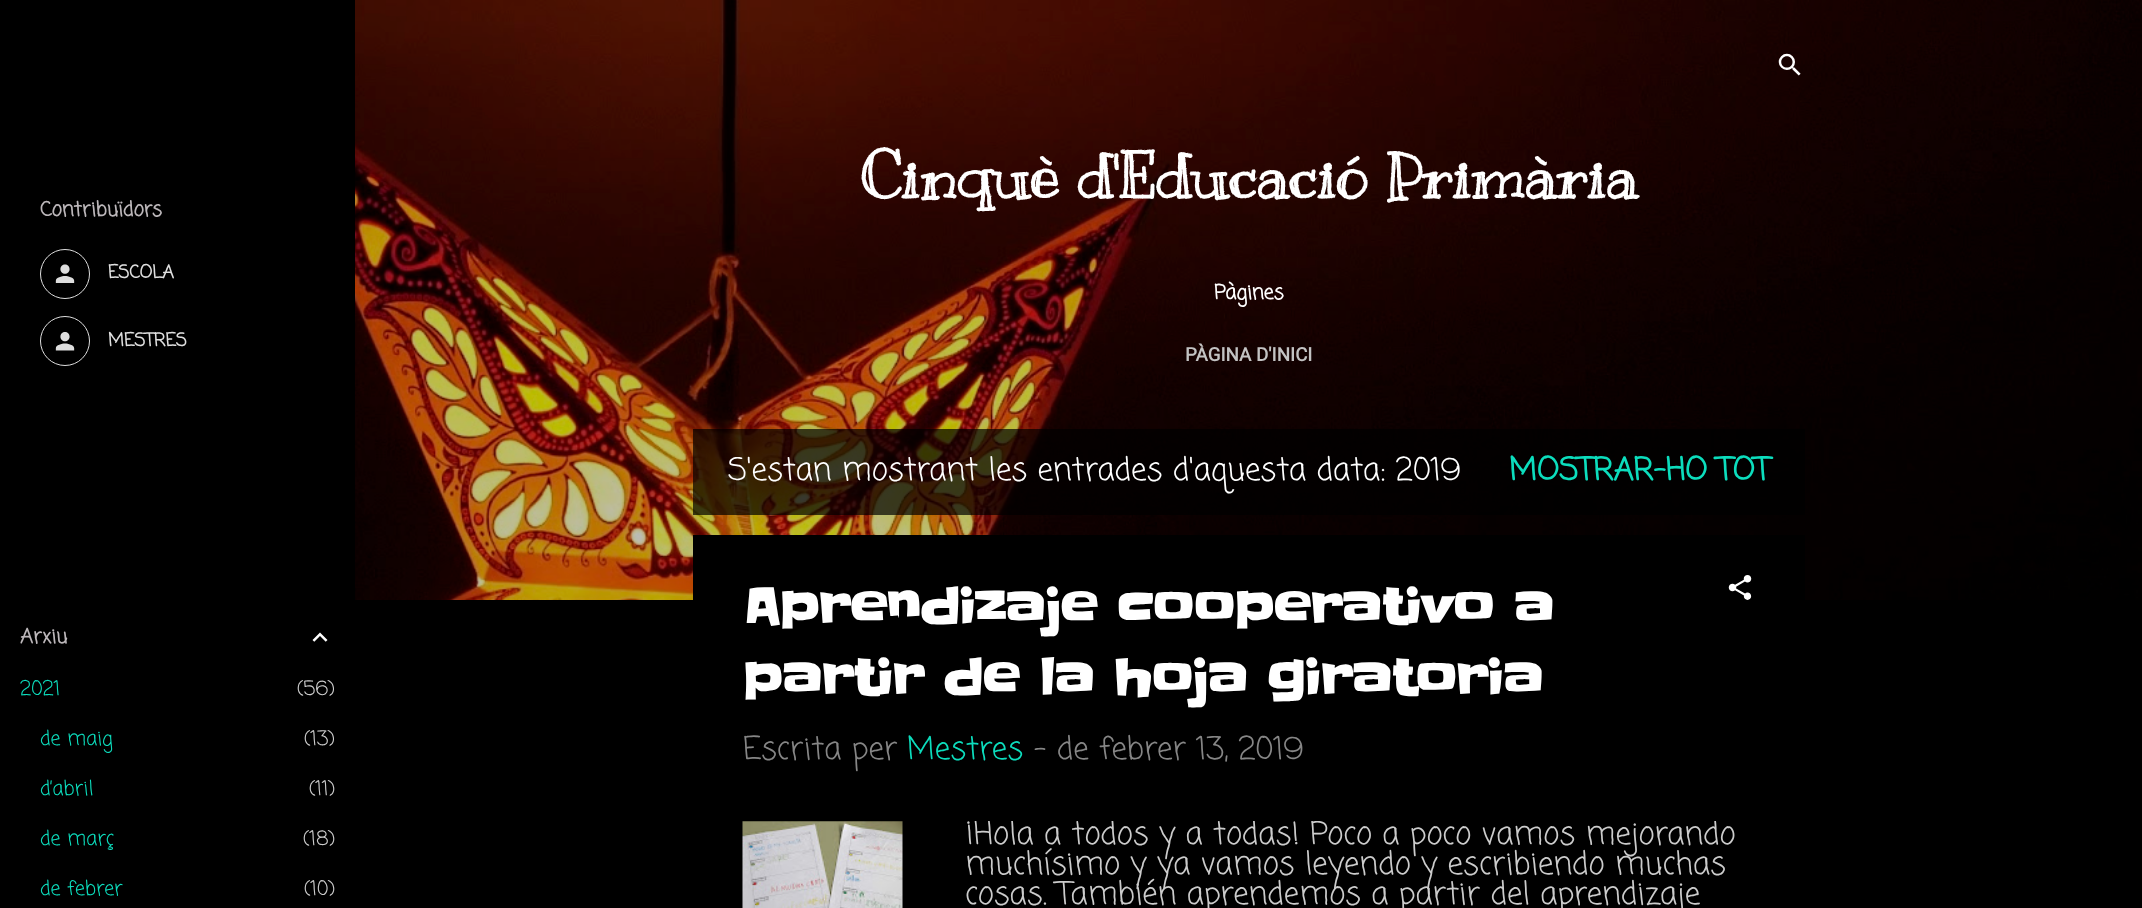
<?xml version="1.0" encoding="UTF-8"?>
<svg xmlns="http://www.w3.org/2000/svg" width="2142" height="908">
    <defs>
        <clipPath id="clip1"><rect x="965" y="821" width="790" height="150"/></clipPath>
    </defs>
    <rect width="100%" height="100%" fill="#000000"/>
    <text x="40" y="216" font-family="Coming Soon" font-size="20" font-weight="700" fill="#BCB7BA">Contribuïdors</text>
    <circle cx="65" cy="274" r="24.5" fill="none" stroke="#DEDEDE"/>
    <image x="55" y="264" width="20" height="19" href="img_01.png"/>
    <text x="108" y="278" font-family="Coming Soon" font-size="18" font-weight="700" fill="#DEDEDE">ESCOLA</text>
    <circle cx="65" cy="341" r="24.5" fill="none" stroke="#DEDEDE"/>
    <image x="55" y="332" width="20" height="19" href="img_02.png"/>
    <text x="108" y="346" font-family="Coming Soon" font-size="18" font-weight="700" fill="#DEDEDE">MESTRES</text>
    <text x="20" y="643" font-family="Coming Soon" font-size="20" font-weight="700" fill="#BCB7BA">Arxiu</text>
    <image x="312" y="632" width="16" height="10" href="img_03.png"/>
    <text x="20" y="695" font-family="Coming Soon" font-size="20" fill="#0CDDBD">2021</text>
    <text x="297" y="695" font-family="Coming Soon" font-size="20" fill="#CCCCCC">(56)</text>
    <text x="40" y="745" font-family="Coming Soon" font-size="20" fill="#0CDDBD">de maig</text>
    <text x="304" y="745" font-family="Coming Soon" font-size="20" fill="#CCCCCC">(13)</text>
    <text x="40" y="795" font-family="Coming Soon" font-size="20" fill="#0CDDBD">d’abril</text>
    <text x="309" y="795" font-family="Coming Soon" font-size="20" fill="#CCCCCC">(11)</text>
    <text x="40" y="845" font-family="Coming Soon" font-size="20" fill="#0CDDBD">de març</text>
    <text x="303" y="845" font-family="Coming Soon" font-size="20" fill="#CCCCCC">(18)</text>
    <text x="40" y="895" font-family="Coming Soon" font-size="20" fill="#0CDDBD">de febrer</text>
    <text x="304" y="895" font-family="Coming Soon" font-size="20" fill="#CCCCCC">(10)</text>
    <image x="355" y="0" width="1787" height="600" href="img_04.png"/>
    <image x="1778" y="53" width="23" height="23" href="img_05.png"/>
    <text x="860" y="198" font-family="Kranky" font-size="62.5" font-weight="700" fill="#FFFFFF">Cinquè d'Educació Primària</text>
    <text x="1214" y="299" font-family="Coming Soon" font-size="20" font-weight="700" fill="#FFFFFF">Pàgines</text>
    <text x="1185" y="361" font-family="Roboto" font-size="18.75" font-weight="700" fill="#C3C3C3">PÀGINA D'INICI</text>
    <rect x="693" y="429" width="1112" height="86" fill="#000000" fill-opacity="0.7"/>
    <text x="728" y="480" font-family="Coming Soon" font-size="31.25" fill="#FFFFFF">S'estan mostrant les entrades d'aquesta data: 2019</text>
    <text x="1509" y="480" font-family="Coming Soon" font-size="31.25" font-weight="700" fill="#0CDDBD">MOSTRAR-HO TOT</text>
    <rect x="693" y="535" width="1112" height="65" fill="#000000"/>
    <text font-family="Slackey" font-size="50" font-weight="700" fill="#FFFFFF">
        <tspan x="743" y="625">Aprendizaje cooperativo a</tspan>
        <tspan x="743" y="696">partir de la hoja giratoria</tspan>
    </text>
    <image x="1728" y="575" width="24" height="25" href="img_06.png"/>
    <text x="743" y="759" font-family="Coming Soon" font-size="31.25" fill="#868686">Escrita per</text>
    <text x="907" y="759" font-family="Coming Soon" font-size="31.25" fill="#0CDDBD">Mestres</text>
    <text x="1034" y="759" font-family="Coming Soon" font-size="31.25" fill="#868686">- de febrer 13, 2019</text>
    <image x="742" y="821" width="161" height="87" href="img_07.png"/>
    <g clip-path="url(#clip1)">
        <text x="965" y="844" font-family="Coming Soon" font-size="31.25" fill="#CCCCCC">¡Hola a todos y a todas! Poco a poco vamos mejorando</text>
    </g>
    <text font-family="Coming Soon" font-size="31.25" fill="#CCCCCC">
        <tspan x="965" y="874">muchísimo y ya vamos leyendo y escribiendo muchas</tspan>
        <tspan x="965" y="904">cosas. También aprendemos a partir del aprendizaje</tspan>
    </text>
</svg>
